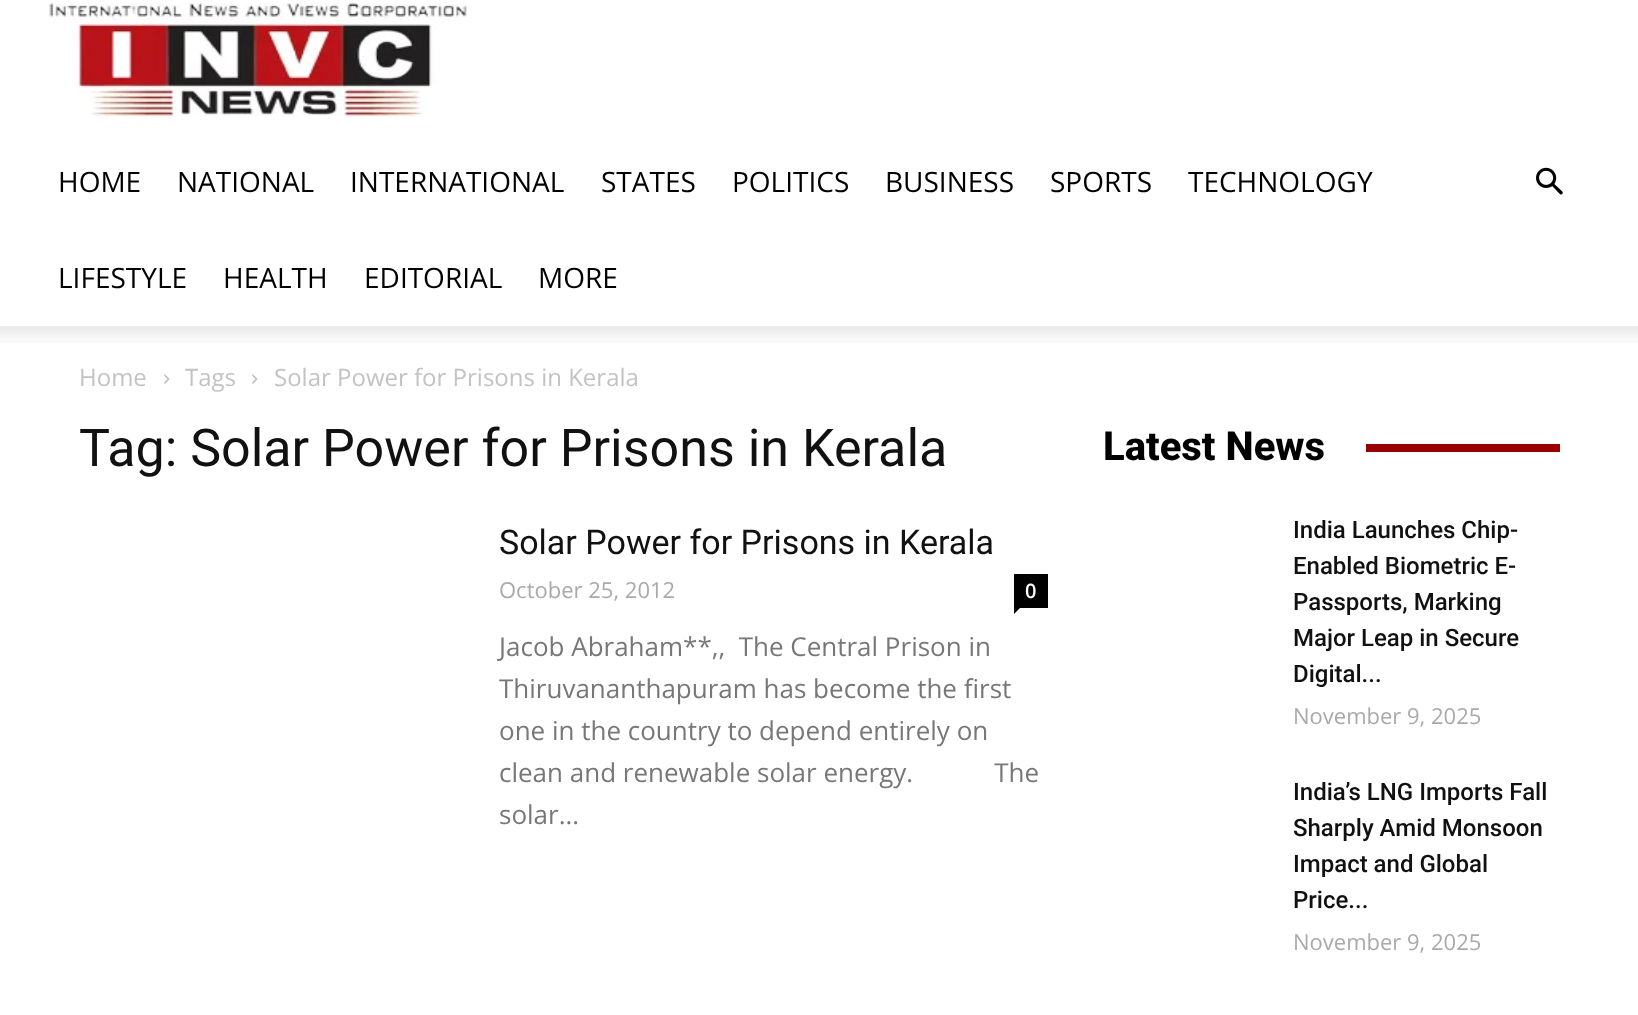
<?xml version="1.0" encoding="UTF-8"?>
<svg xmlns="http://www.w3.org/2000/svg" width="1638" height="1015">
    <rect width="100%" height="100%" fill="#FFFFFF"/>
    <image x="47" y="3" width="421" height="114" href="img_01.png"/>
    <text x="58" y="192" font-family="Open Sans" font-size="28" fill="#000000">HOME</text>
    <text x="177" y="192" font-family="Open Sans" font-size="28" fill="#000000">NATIONAL</text>
    <text x="350" y="192" font-family="Open Sans" font-size="28" fill="#000000">INTERNATIONAL</text>
    <text x="601" y="192" font-family="Open Sans" font-size="28" fill="#000000">STATES</text>
    <text x="732" y="192" font-family="Open Sans" font-size="28" fill="#000000">POLITICS</text>
    <text x="885" y="192" font-family="Open Sans" font-size="28" fill="#000000">BUSINESS</text>
    <text x="1050" y="192" font-family="Open Sans" font-size="28" fill="#000000">SPORTS</text>
    <text x="1188" y="192" font-family="Open Sans" font-size="28" fill="#000000">TECHNOLOGY</text>
    <text x="58" y="288" font-family="Open Sans" font-size="28" fill="#000000">LIFESTYLE</text>
    <text x="223" y="288" font-family="Open Sans" font-size="28" fill="#000000">HEALTH</text>
    <text x="364" y="288" font-family="Open Sans" font-size="28" fill="#000000">EDITORIAL</text>
    <text x="538" y="288" font-family="Open Sans" font-size="28" fill="#000000">MORE</text>
    <image x="1536" y="167" width="27" height="28" href="img_02.png"/>
    <image x="0" y="326" width="1638" height="17" href="img_03.png"/>
    <text x="79" y="386" font-family="Open Sans" font-size="24" fill="#C3C3C3">Home</text>
    <image x="164" y="374" width="6" height="10" href="img_04.png"/>
    <text x="185" y="386" font-family="Open Sans" font-size="24" fill="#C3C3C3">Tags</text>
    <image x="252" y="374" width="6" height="10" href="img_04.png"/>
    <text x="274" y="386" font-family="Open Sans" font-size="24" fill="#C3C3C3">Solar Power for Prisons in Kerala</text>
    <text x="79" y="466" font-family="Roboto" font-size="52" fill="#111111">Tag: Solar Power for Prisons in Kerala</text>
    <text x="499" y="554" font-family="Roboto" font-size="34" fill="#111111">Solar Power for Prisons in Kerala</text>
    <text x="499" y="598" font-family="Open Sans" font-size="22" fill="#AAAAAA">October 25, 2012</text>
    <rect x="1014" y="574" width="34" height="34" fill="#000000"/>
    <text x="1025" y="598" font-family="Open Sans" font-size="20" font-weight="600" fill="#FFFFFF">0</text>
    <path d="M 1014 608 H 1020 L 1014 614 Z" fill="#000000"/>
    <text font-family="Open Sans" font-size="26" fill="#777777" xml:space="preserve"><tspan x="499" y="656">Jacob Abraham**,,  The Central Prison in</tspan><tspan x="499" y="698">Thiruvananthapuram has become the first</tspan><tspan x="499" y="740">one in the country to depend entirely on</tspan><tspan x="499" y="782">clean and renewable solar energy.            The</tspan><tspan x="499" y="824">solar...</tspan></text>
    <text x="1103" y="460" font-family="Roboto" font-size="40" font-weight="800" fill="#000000">Latest News</text>
    <rect x="1366" y="444" width="194" height="8" fill="#990000"/>
    <text font-family="Roboto" font-size="24" font-weight="500" fill="#111111">
        <tspan x="1293" y="538">India Launches Chip-</tspan>
        <tspan x="1293" y="574">Enabled Biometric E-</tspan>
        <tspan x="1293" y="610">Passports, Marking</tspan>
        <tspan x="1293" y="646">Major Leap in Secure</tspan>
        <tspan x="1293" y="682">Digital...</tspan>
    </text>
    <text x="1293" y="724" font-family="Open Sans" font-size="22" fill="#AAAAAA">November 9, 2025</text>
    <text font-family="Roboto" font-size="24" font-weight="500" fill="#111111">
        <tspan x="1293" y="800">India’s LNG Imports Fall</tspan>
        <tspan x="1293" y="836">Sharply Amid Monsoon</tspan>
        <tspan x="1293" y="872">Impact and Global</tspan>
        <tspan x="1293" y="908">Price...</tspan>
    </text>
    <text x="1293" y="950" font-family="Open Sans" font-size="22" fill="#AAAAAA">November 9, 2025</text>
</svg>
